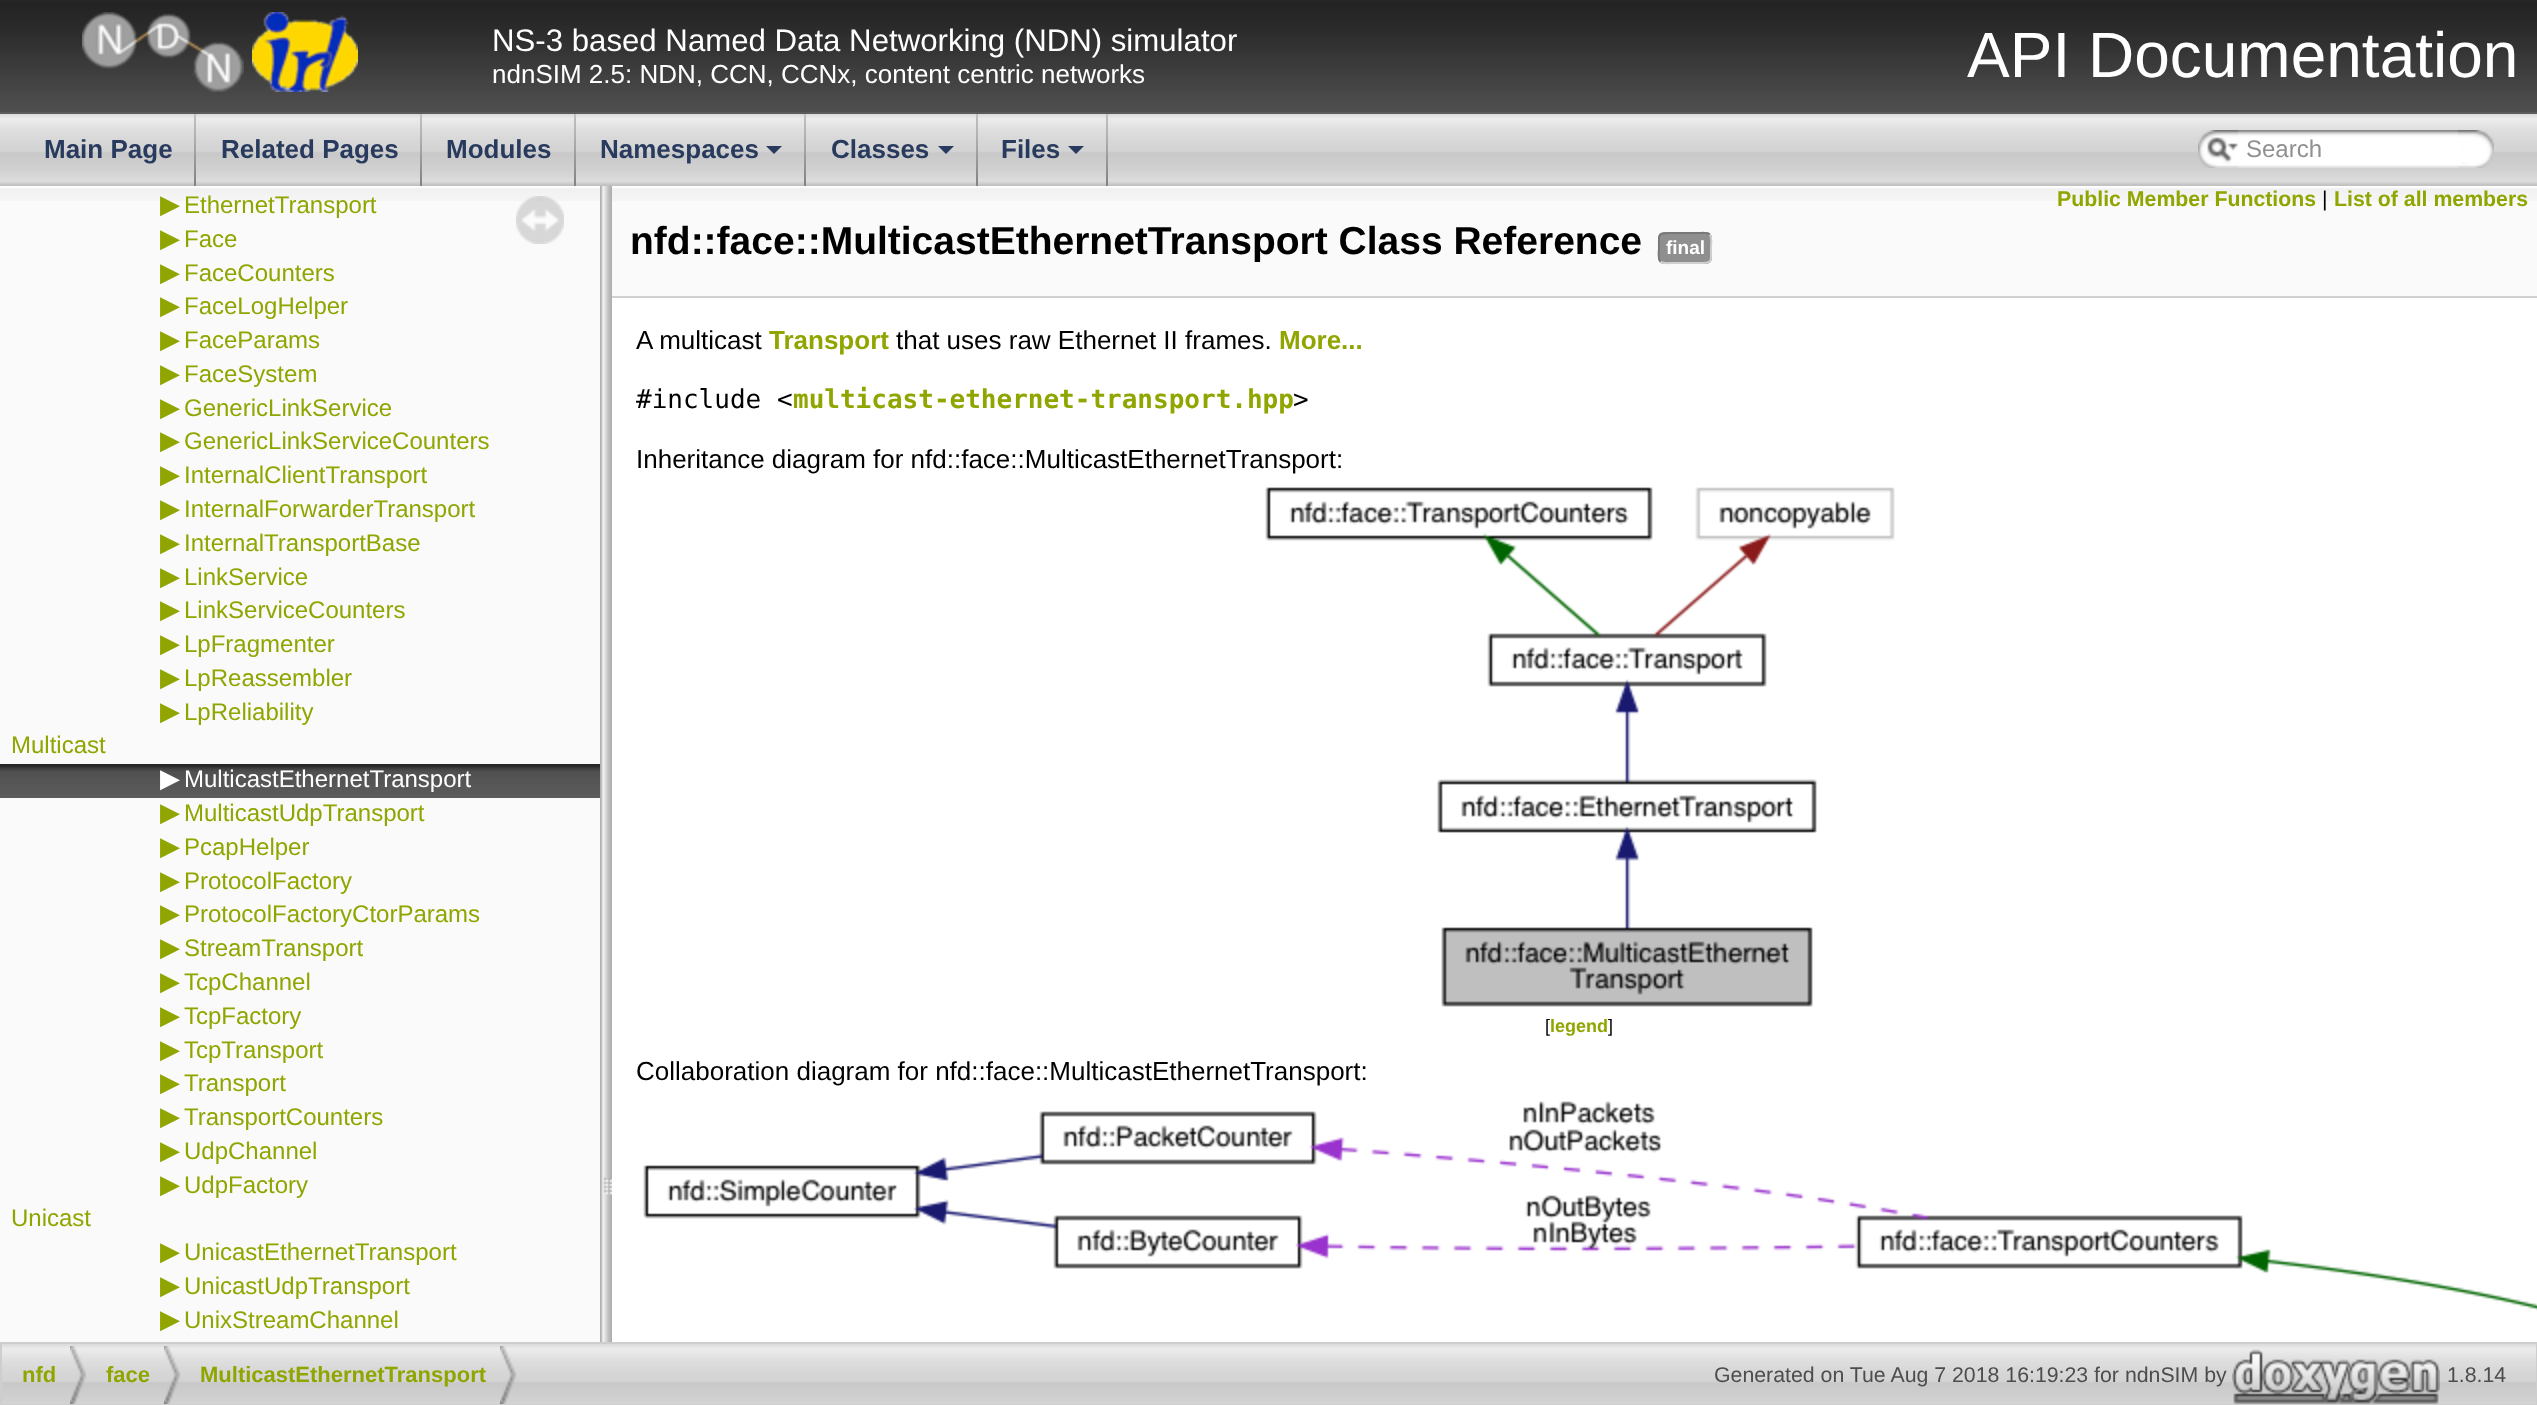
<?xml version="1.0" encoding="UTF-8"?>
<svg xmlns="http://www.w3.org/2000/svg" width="2537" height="1405">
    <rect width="100%" height="100%" fill="#FFFFFF"/>
    <image x="0" y="0" width="2537" height="112" href="img_01.png"/>
    <rect x="0" y="112" width="2537" height="2" fill="#5B5B5B"/>
    <image x="82" y="12" width="162" height="80" href="img_02.png"/>
    <image x="252" y="12" width="106" height="80" href="img_03.png"/>
    <text x="492" y="51" font-family="Liberation Sans" font-size="31.2" fill="#FFFFFF">NS-3 based Named Data Networking (NDN) simulator</text>
    <text x="492" y="83" font-family="Liberation Sans" font-size="26" fill="#FFFFFF">ndnSIM 2.5: NDN, CCN, CCNx, content centric networks</text>
    <text x="1967" y="77" font-family="Liberation Sans" font-size="64" fill="#FFFFFF">API Documentation</text>
    <image x="0" y="114" width="2537" height="72" href="img_04.png"/>
    <image x="194" y="114" width="2" height="72" href="img_05.png"/>
    <text x="44" y="158" font-family="Liberation Sans" font-size="26" font-weight="700" fill="#283A5D">Main Page</text>
    <image x="420" y="114" width="2" height="72" href="img_05.png"/>
    <text x="221" y="158" font-family="Liberation Sans" font-size="26" font-weight="700" fill="#283A5D">Related Pages</text>
    <image x="574" y="114" width="2" height="72" href="img_05.png"/>
    <text x="446" y="158" font-family="Liberation Sans" font-size="26" font-weight="700" fill="#283A5D">Modules</text>
    <image x="804" y="114" width="2" height="72" href="img_05.png"/>
    <text x="600" y="158" font-family="Liberation Sans" font-size="26" font-weight="700" fill="#283A5D">Namespaces</text>
    <path d="M 766 146 H 782 L 774 154 Z" fill="#283A5D"/>
    <image x="976" y="114" width="2" height="72" href="img_05.png"/>
    <text x="831" y="158" font-family="Liberation Sans" font-size="26" font-weight="700" fill="#283A5D">Classes</text>
    <path d="M 938 146 H 954 L 946 154 Z" fill="#283A5D"/>
    <image x="1106" y="114" width="2" height="72" href="img_05.png"/>
    <text x="1001" y="158" font-family="Liberation Sans" font-size="26" font-weight="700" fill="#283A5D">Files</text>
    <path d="M 1068 146 H 1084 L 1076 154 Z" fill="#283A5D"/>
    <image x="2198" y="130" width="40" height="38" href="img_06.png"/>
    <image x="2207" y="137" width="31" height="26" href="img_07.png"/>
    <image x="2238" y="130" width="220" height="38" href="img_08.png"/>
    <text x="2246" y="157" font-family="Liberation Sans" font-size="24" fill="#909090">Search</text>
    <image x="2458" y="130" width="36" height="38" href="img_09.png"/>
    <rect x="0" y="201" width="600" height="1141" fill="#FAFAFA"/>
    <image x="0" y="186" width="600" height="15" href="img_10.png"/>
    <text x="160" y="213" font-family="DejaVu Sans" font-size="26" fill="#91A501">▶</text>
    <text x="184" y="213" font-family="Liberation Sans" font-size="24" fill="#91A501">EthernetTransport</text>
    <text x="160" y="247" font-family="DejaVu Sans" font-size="26" fill="#91A501">▶</text>
    <text x="184" y="247" font-family="Liberation Sans" font-size="24" fill="#91A501">Face</text>
    <text x="160" y="281" font-family="DejaVu Sans" font-size="26" fill="#91A501">▶</text>
    <text x="184" y="281" font-family="Liberation Sans" font-size="24" fill="#91A501">FaceCounters</text>
    <text x="160" y="314" font-family="DejaVu Sans" font-size="26" fill="#91A501">▶</text>
    <text x="184" y="314" font-family="Liberation Sans" font-size="24" fill="#91A501">FaceLogHelper</text>
    <text x="160" y="348" font-family="DejaVu Sans" font-size="26" fill="#91A501">▶</text>
    <text x="184" y="348" font-family="Liberation Sans" font-size="24" fill="#91A501">FaceParams</text>
    <text x="160" y="382" font-family="DejaVu Sans" font-size="26" fill="#91A501">▶</text>
    <text x="184" y="382" font-family="Liberation Sans" font-size="24" fill="#91A501">FaceSystem</text>
    <text x="160" y="416" font-family="DejaVu Sans" font-size="26" fill="#91A501">▶</text>
    <text x="184" y="416" font-family="Liberation Sans" font-size="24" fill="#91A501">GenericLinkService</text>
    <text x="160" y="449" font-family="DejaVu Sans" font-size="26" fill="#91A501">▶</text>
    <text x="184" y="449" font-family="Liberation Sans" font-size="24" fill="#91A501">GenericLinkServiceCounters</text>
    <text x="160" y="483" font-family="DejaVu Sans" font-size="26" fill="#91A501">▶</text>
    <text x="184" y="483" font-family="Liberation Sans" font-size="24" fill="#91A501">InternalClientTransport</text>
    <text x="160" y="517" font-family="DejaVu Sans" font-size="26" fill="#91A501">▶</text>
    <text x="184" y="517" font-family="Liberation Sans" font-size="24" fill="#91A501">InternalForwarderTransport</text>
    <text x="160" y="551" font-family="DejaVu Sans" font-size="26" fill="#91A501">▶</text>
    <text x="184" y="551" font-family="Liberation Sans" font-size="24" fill="#91A501">InternalTransportBase</text>
    <text x="160" y="585" font-family="DejaVu Sans" font-size="26" fill="#91A501">▶</text>
    <text x="184" y="585" font-family="Liberation Sans" font-size="24" fill="#91A501">LinkService</text>
    <text x="160" y="618" font-family="DejaVu Sans" font-size="26" fill="#91A501">▶</text>
    <text x="184" y="618" font-family="Liberation Sans" font-size="24" fill="#91A501">LinkServiceCounters</text>
    <text x="160" y="652" font-family="DejaVu Sans" font-size="26" fill="#91A501">▶</text>
    <text x="184" y="652" font-family="Liberation Sans" font-size="24" fill="#91A501">LpFragmenter</text>
    <text x="160" y="686" font-family="DejaVu Sans" font-size="26" fill="#91A501">▶</text>
    <text x="184" y="686" font-family="Liberation Sans" font-size="24" fill="#91A501">LpReassembler</text>
    <text x="160" y="720" font-family="DejaVu Sans" font-size="26" fill="#91A501">▶</text>
    <text x="184" y="720" font-family="Liberation Sans" font-size="24" fill="#91A501">LpReliability</text>
    <text x="11" y="753" font-family="Liberation Sans" font-size="24" fill="#91A501">Multicast</text>
    <image x="0" y="764" width="600" height="34" href="img_11.png"/>
    <text x="160" y="787" font-family="DejaVu Sans" font-size="26" fill="#FFFFFF">▶</text>
    <text x="184" y="787" font-family="Liberation Sans" font-size="24" fill="#FFFFFF">MulticastEthernetTransport</text>
    <text x="160" y="821" font-family="DejaVu Sans" font-size="26" fill="#91A501">▶</text>
    <text x="184" y="821" font-family="Liberation Sans" font-size="24" fill="#91A501">MulticastUdpTransport</text>
    <text x="160" y="855" font-family="DejaVu Sans" font-size="26" fill="#91A501">▶</text>
    <text x="184" y="855" font-family="Liberation Sans" font-size="24" fill="#91A501">PcapHelper</text>
    <text x="160" y="889" font-family="DejaVu Sans" font-size="26" fill="#91A501">▶</text>
    <text x="184" y="889" font-family="Liberation Sans" font-size="24" fill="#91A501">ProtocolFactory</text>
    <text x="160" y="922" font-family="DejaVu Sans" font-size="26" fill="#91A501">▶</text>
    <text x="184" y="922" font-family="Liberation Sans" font-size="24" fill="#91A501">ProtocolFactoryCtorParams</text>
    <text x="160" y="956" font-family="DejaVu Sans" font-size="26" fill="#91A501">▶</text>
    <text x="184" y="956" font-family="Liberation Sans" font-size="24" fill="#91A501">StreamTransport</text>
    <text x="160" y="990" font-family="DejaVu Sans" font-size="26" fill="#91A501">▶</text>
    <text x="184" y="990" font-family="Liberation Sans" font-size="24" fill="#91A501">TcpChannel</text>
    <text x="160" y="1024" font-family="DejaVu Sans" font-size="26" fill="#91A501">▶</text>
    <text x="184" y="1024" font-family="Liberation Sans" font-size="24" fill="#91A501">TcpFactory</text>
    <text x="160" y="1058" font-family="DejaVu Sans" font-size="26" fill="#91A501">▶</text>
    <text x="184" y="1058" font-family="Liberation Sans" font-size="24" fill="#91A501">TcpTransport</text>
    <text x="160" y="1091" font-family="DejaVu Sans" font-size="26" fill="#91A501">▶</text>
    <text x="184" y="1091" font-family="Liberation Sans" font-size="24" fill="#91A501">Transport</text>
    <text x="160" y="1125" font-family="DejaVu Sans" font-size="26" fill="#91A501">▶</text>
    <text x="184" y="1125" font-family="Liberation Sans" font-size="24" fill="#91A501">TransportCounters</text>
    <text x="160" y="1159" font-family="DejaVu Sans" font-size="26" fill="#91A501">▶</text>
    <text x="184" y="1159" font-family="Liberation Sans" font-size="24" fill="#91A501">UdpChannel</text>
    <text x="160" y="1193" font-family="DejaVu Sans" font-size="26" fill="#91A501">▶</text>
    <text x="184" y="1193" font-family="Liberation Sans" font-size="24" fill="#91A501">UdpFactory</text>
    <text x="11" y="1226" font-family="Liberation Sans" font-size="24" fill="#91A501">Unicast</text>
    <text x="160" y="1260" font-family="DejaVu Sans" font-size="26" fill="#91A501">▶</text>
    <text x="184" y="1260" font-family="Liberation Sans" font-size="24" fill="#91A501">UnicastEthernetTransport</text>
    <text x="160" y="1294" font-family="DejaVu Sans" font-size="26" fill="#91A501">▶</text>
    <text x="184" y="1294" font-family="Liberation Sans" font-size="24" fill="#91A501">UnicastUdpTransport</text>
    <text x="160" y="1328" font-family="DejaVu Sans" font-size="26" fill="#91A501">▶</text>
    <text x="184" y="1328" font-family="Liberation Sans" font-size="24" fill="#91A501">UnixStreamChannel</text>
    <image x="516" y="196" width="48" height="48" href="img_12.png"/>
    <image x="600" y="186" width="12" height="1156" href="img_13.png"/>
    <rect x="612" y="201" width="1925" height="95" fill="#FAFAFA"/>
    <image x="612" y="186" width="1925" height="15" href="img_14.png"/>
    <rect x="612" y="296" width="1925" height="2" fill="#D0D0D0"/>
    <text x="2057" y="206" font-family="Liberation Sans" font-size="21.3" font-weight="700" fill="#91A501">Public Member Functions</text>
    <text x="2322" y="206" font-family="Liberation Sans" font-size="21.3" fill="#000000">|</text>
    <text x="2334" y="206" font-family="Liberation Sans" font-size="21.3" font-weight="700" fill="#91A501">List of all members</text>
    <text x="630" y="254" font-family="Liberation Sans" font-size="39" font-weight="700" fill="#000000">nfd::face::MulticastEthernetTransport Class Reference</text>
    <rect x="1658" y="232" width="54" height="32" rx="6" fill="#8F8F8F"/>
    <path d="M 1709.5 234.5 C 1712.5 237 1711 244.5 1711 248 C 1711 262 1713 263 1699 263 H 1671 C 1668.5 263 1663 264 1660.5 261.5" fill="none" stroke="#D0D0D0" stroke-width="2"/>
    <path d="M 1660.5 261.5 C 1657.5 259 1659 251.5 1659 248 C 1659 234 1657 233 1671 233 H 1699 C 1701.5 233 1707 232 1709.5 234.5" fill="none" stroke="#787878" stroke-width="2"/>
    <text x="1666" y="254" font-family="Liberation Sans" font-size="19" font-weight="700" fill="#FFFFFF">final</text>
    <text x="636" y="349" font-family="Liberation Sans" font-size="26" fill="#000000">A multicast</text>
    <text x="769" y="349" font-family="Liberation Sans" font-size="26" font-weight="700" fill="#91A501">Transport</text>
    <text x="896" y="349" font-family="Liberation Sans" font-size="26" fill="#000000">that uses raw Ethernet II frames.</text>
    <text x="1279" y="349" font-family="Liberation Sans" font-size="26" font-weight="700" fill="#91A501">More...</text>
    <text x="636" y="408" font-family="DejaVu Sans Mono" font-size="26" fill="#000000">#include &lt;</text>
    <text x="793" y="408" font-family="DejaVu Sans Mono" font-size="26" font-weight="700" fill="#91A501">multicast-ethernet-transport.hpp</text>
    <text x="1293" y="408" font-family="DejaVu Sans Mono" font-size="26" fill="#000000">&gt;</text>
    <text x="636" y="468" font-family="Liberation Sans" font-size="26" fill="#000000">Inheritance diagram for nfd::face::MulticastEthernetTransport:</text>
    <image x="1265" y="487" width="630" height="520" href="img_15.png"/>
    <text x="1545" y="1032" font-family="Liberation Sans" font-size="18" fill="#000000">[</text>
    <text x="1550" y="1032" font-family="Liberation Sans" font-size="18" font-weight="700" fill="#91A501">legend</text>
    <text x="1608" y="1032" font-family="Liberation Sans" font-size="18" fill="#000000">]</text>
    <text x="636" y="1080" font-family="Liberation Sans" font-size="26" fill="#000000">Collaboration diagram for nfd::face::MulticastEthernetTransport:</text>
    <image x="643" y="1101" width="1894" height="210" href="img_16.png"/>
    <image x="2" y="1344" width="2534" height="60" href="img_17.png"/>
    <rect x="1" y="1343" width="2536" height="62" fill="none" stroke="#CECECE" stroke-width="2"/>
    <image x="70" y="1346" width="16" height="58" href="img_18.png"/>
    <text x="22" y="1382" font-family="Liberation Sans" font-size="22" font-weight="700" fill="#91A501">nfd</text>
    <image x="164" y="1346" width="16" height="58" href="img_18.png"/>
    <text x="106" y="1382" font-family="Liberation Sans" font-size="22" font-weight="700" fill="#91A501">face</text>
    <image x="500" y="1346" width="16" height="58" href="img_18.png"/>
    <text x="200" y="1382" font-family="Liberation Sans" font-size="22" font-weight="700" fill="#91A501">MulticastEthernetTransport</text>
    <text x="1714" y="1382" font-family="Liberation Sans" font-size="21.3" fill="#4D4D4D">Generated on Tue Aug 7 2018 16:19:23 for ndnSIM by</text>
    <image x="2232" y="1349" width="208" height="55" href="img_19.png"/>
    <text x="2447" y="1382" font-family="Liberation Sans" font-size="21.3" fill="#4D4D4D">1.8.14</text>
</svg>
